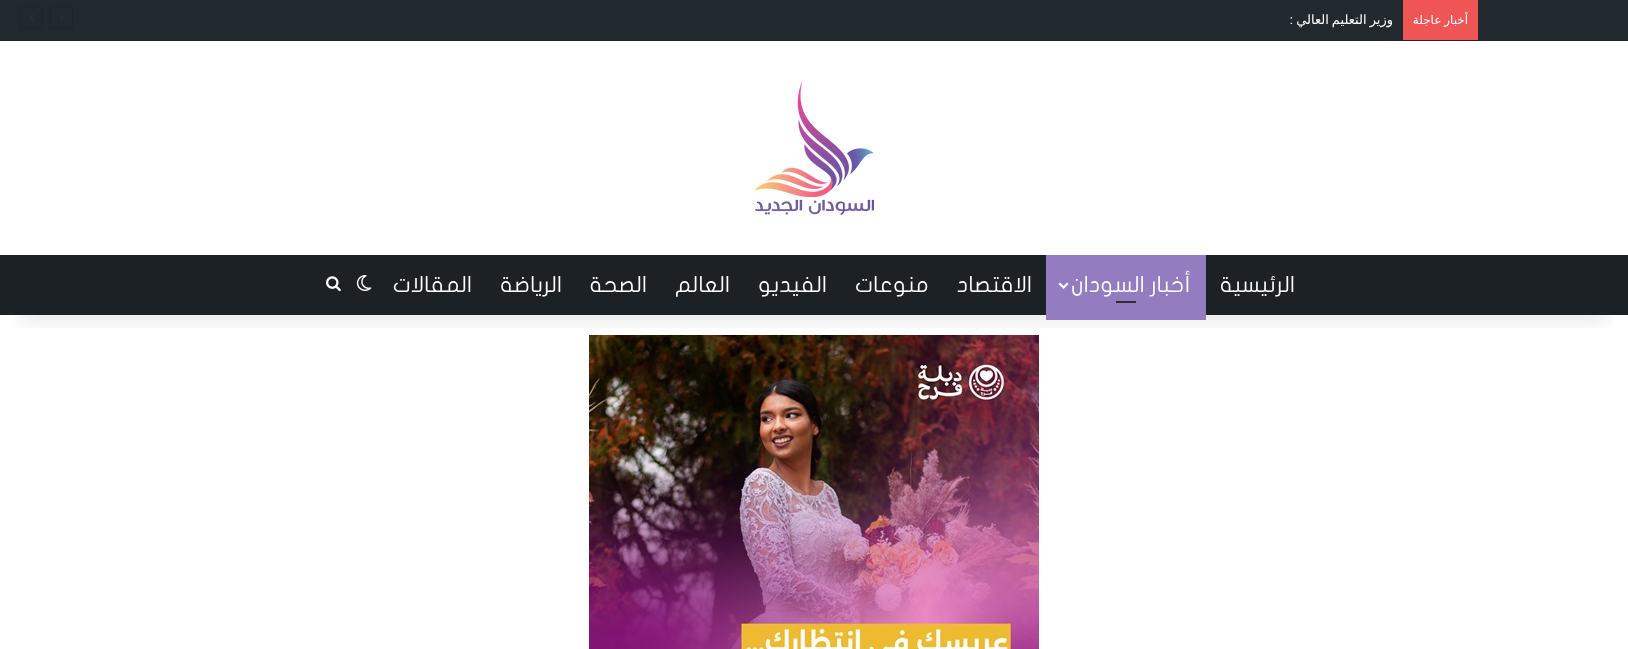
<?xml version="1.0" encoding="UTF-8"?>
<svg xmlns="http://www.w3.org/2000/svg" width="1628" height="649">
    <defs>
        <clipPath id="clip1"><rect x="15" y="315" width="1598" height="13"/></clipPath>
        <filter id="blur1" x="-50%" y="-200%" width="200%" height="500%"><feGaussianBlur stdDeviation="10"/></filter>
    </defs>
    <rect width="100%" height="100%" fill="#FFFFFF"/>
    <image x="589" y="335" width="450" height="314" href="img_07.png"/>
    <g clip-path="url(#clip1)">
        <rect x="20" y="45" width="1588" height="275" fill="#000000" fill-opacity="0.1" filter="url(#blur1)"/>
    </g>
    <rect x="0" y="0" width="1628" height="40" fill="#21282E"/>
    <rect x="0" y="40" width="1628" height="1" fill="#1E2429"/>
    <rect x="1403" y="0" width="75" height="40" fill="#F05555"/>
    <text x="1468" y="24" word-spacing="-1" font-family="DejaVu Sans" font-size="12" direction="rtl" fill="#FFFFFF">أخبار عاجلة</text>
    <text x="1393" y="24" word-spacing="-1" font-family="DejaVu Sans" font-size="13" direction="rtl" fill="#FFFFFF">وزير التعليم العالي</text>
    <text x="1293" y="24" font-family="Roboto" font-size="13" direction="rtl" fill="#FFFFFF">:</text>
    <path d="M 71 28.5 H 52 C 51 28.5 50.5 28 50.5 27 V 8 C 50.5 7 51 6.5 52 6.5 H 71 C 72 6.5 72.5 7 72.5 8 V 27 C 72.5 28 72 28.5 71 28.5 Z" fill="none" stroke="#1E2429"/>
    <image x="60" y="15" width="4" height="7" href="img_01.png"/>
    <path d="M 41 28.5 H 22 C 21 28.5 20.5 28 20.5 27 V 8 C 20.5 7 21 6.5 22 6.5 H 41 C 42 6.5 42.5 7 42.5 8 V 27 C 42.5 28 42 28.5 41 28.5 Z" fill="none" stroke="#1E2429"/>
    <image x="30" y="14" width="4" height="8" href="img_02.png"/>
    <image x="754" y="81" width="120" height="134" href="img_03.png"/>
    <rect x="0" y="255" width="1628" height="60" fill="#1C2126"/>
    <text x="1295" y="292" font-family="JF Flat" font-size="22" direction="rtl" fill="#FFFFFF">الرئيسية</text>
    <rect x="1046" y="255" width="160" height="65" fill="#937CBF"/>
    <text x="1191" y="292" font-family="JF Flat" font-size="22" direction="rtl" fill="#FFFFFF">أخبار السودان</text>
    <image x="1058" y="282" width="11" height="7" href="img_04.png"/>
    <rect x="1116" y="301" width="20" height="2" fill="#2C2F34"/>
    <text x="1032" y="292" font-family="JF Flat" font-size="22" direction="rtl" fill="#FFFFFF">الاقتصاد</text>
    <text x="929" y="292" font-family="JF Flat" font-size="22" direction="rtl" fill="#FFFFFF">منوعات</text>
    <text x="827" y="292" font-family="JF Flat" font-size="22" direction="rtl" fill="#FFFFFF">الفيديو</text>
    <text x="730" y="292" font-family="JF Flat" font-size="22" direction="rtl" fill="#FFFFFF">العالم</text>
    <text x="647" y="292" font-family="JF Flat" font-size="22" direction="rtl" fill="#FFFFFF">الصحة</text>
    <text x="562" y="292" font-family="JF Flat" font-size="22" direction="rtl" fill="#FFFFFF">الرياضة</text>
    <text x="472" y="292" font-family="JF Flat" font-size="22" direction="rtl" fill="#FFFFFF">المقالات</text>
    <image x="356" y="275" width="16" height="16" href="img_05.png"/>
    <image x="326" y="276" width="15" height="16" href="img_06.png"/>
</svg>
